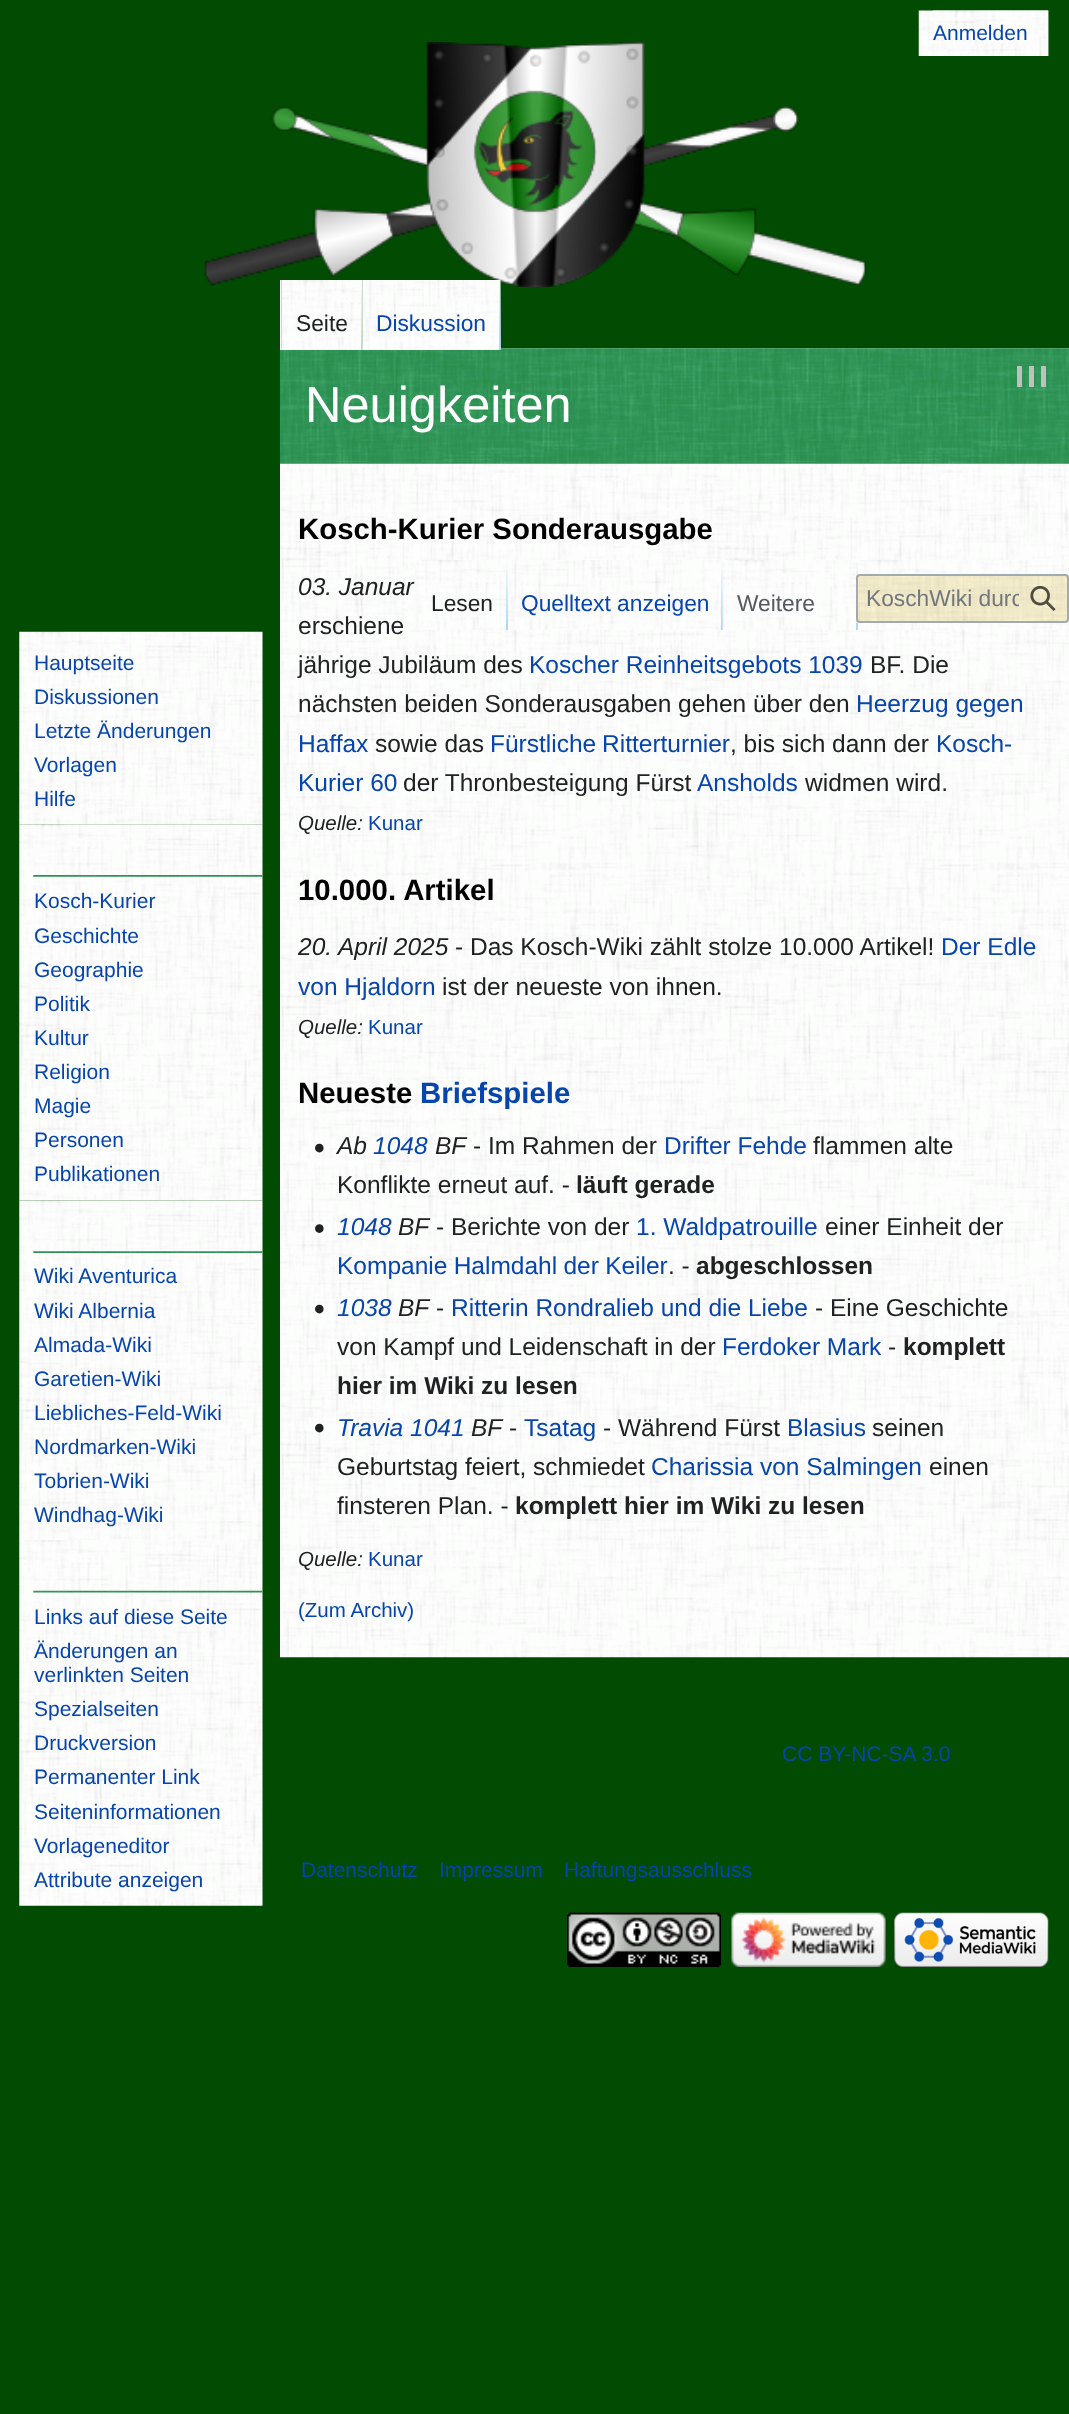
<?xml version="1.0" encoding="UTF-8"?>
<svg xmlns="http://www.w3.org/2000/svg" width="1069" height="2414">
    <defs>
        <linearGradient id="g1" gradientUnits="userSpaceOnUse" x1="500" y1="280" x2="500" y2="350"><stop offset="0" stop-color="#A7D7F9" stop-opacity="0"/><stop offset="1" stop-color="#A7D7F9"/></linearGradient>
        <linearGradient id="g2" gradientUnits="userSpaceOnUse" x1="507" y1="560" x2="507" y2="630"><stop offset="0" stop-color="#A7D7F9" stop-opacity="0"/><stop offset="1" stop-color="#A7D7F9"/></linearGradient>
        <linearGradient id="g3" gradientUnits="userSpaceOnUse" x1="722" y1="560" x2="722" y2="630"><stop offset="0" stop-color="#A7D7F9" stop-opacity="0"/><stop offset="1" stop-color="#A7D7F9"/></linearGradient>
        <clipPath id="clip1"><rect x="866" y="586" width="153" height="27"/></clipPath>
    </defs>
    <rect width="100%" height="100%" fill="#024B02"/>
    <image x="918" y="10" width="131" height="46" href="img_01.png"/>
    <image x="932" y="10" width="117" height="46" href="img_02.png"/>
    <image x="933" y="21" width="105" height="25" href="img_03.png"/>
    <text x="933" y="40" font-family="Liberation Sans" font-size="21" fill="#0645AD">Anmelden</text>
    <image x="204" y="42" width="663" height="245" href="img_22.png"/>
    <image x="280" y="348" width="789" height="1310" href="img_23.png"/>
    <image x="280" y="348" width="789" height="116" href="img_24.png"/>
    <image x="280" y="280" width="2" height="70" href="img_04.png"/>
    <image x="281" y="280" width="82" height="70" href="img_05.png"/>
    <text x="296" y="331" font-family="Liberation Sans" font-size="22.75" fill="#202122">Seite</text>
    <image x="362" y="280" width="139" height="70" href="img_06.png"/>
    <rect x="499" y="280" width="2" height="70" fill="url(#g1)"/>
    <text x="376" y="331" font-family="Liberation Sans" font-size="22.75" fill="#0645AD">Diskussion</text>
    <text x="298" y="595" font-family="Liberation Sans" font-size="24.5" font-style="italic" fill="#202122">03. Januar</text>
    <image x="414" y="566" width="3" height="64" href="img_07.png"/>
    <image x="416" y="560" width="92" height="70" href="img_08.png"/>
    <image x="507" y="560" width="216" height="70" href="img_09.png"/>
    <rect x="506" y="560" width="2" height="70" fill="url(#g2)"/>
    <text x="431" y="611" font-family="Liberation Sans" font-size="22.75" fill="#202122">Lesen</text>
    <rect x="721" y="560" width="2" height="70" fill="url(#g3)"/>
    <text x="521" y="611" font-family="Liberation Sans" font-size="22.75" fill="#0645AD">Quelltext anzeigen</text>
    <image x="855" y="560" width="214" height="70" href="img_11.png"/>
    <image x="722" y="560" width="134" height="70" href="img_10.png"/>
    <text x="737" y="611" font-family="Liberation Sans" font-size="22.75" fill="#54595D">Weitere</text>
    <image x="855" y="574" width="213" height="49" href="img_12.png"/>
    <image x="856" y="574" width="213" height="49" href="img_13.png"/>
    <rect x="857" y="575" width="211" height="47" rx="3" fill="none" stroke="#A2A9B1" stroke-width="2"/>
    <g clip-path="url(#clip1)">
        <text x="866" y="606" font-family="Liberation Sans" font-size="22.75" fill="#72777D">KoschWiki durc</text>
    </g>
    <image x="1030" y="585" width="26" height="26" href="img_14.png"/>
    <image x="19" y="631" width="244" height="194" href="img_15.png"/>
    <text font-family="Liberation Sans" font-size="21" fill="#0645AD">
        <tspan x="34" y="670">Hauptseite</tspan>
        <tspan x="34" y="704">Diskussionen</tspan>
        <tspan x="34" y="738">Letzte Änderungen</tspan>
        <tspan x="34" y="772">Vorlagen</tspan>
        <tspan x="34" y="806">Hilfe</tspan>
    </text>
    <image x="19" y="824" width="244" height="377" href="img_16.png"/>
    <image x="33" y="875" width="230" height="2" href="img_17.png"/>
    <text font-family="Liberation Sans" font-size="21" fill="#0645AD">
        <tspan x="34" y="908">Kosch-Kurier</tspan>
        <tspan x="34" y="943">Geschichte</tspan>
        <tspan x="34" y="977">Geographie</tspan>
        <tspan x="34" y="1011">Politik</tspan>
        <tspan x="34" y="1045">Kultur</tspan>
        <tspan x="34" y="1079">Religion</tspan>
        <tspan x="34" y="1113">Magie</tspan>
        <tspan x="34" y="1147">Personen</tspan>
        <tspan x="34" y="1181">Publikationen</tspan>
    </text>
    <image x="19" y="1200" width="244" height="340" href="img_18.png"/>
    <image x="33" y="1251" width="230" height="2" href="img_19.png"/>
    <text font-family="Liberation Sans" font-size="21" fill="#0645AD">
        <tspan x="34" y="1283">Wiki Aventurica</tspan>
        <tspan x="34" y="1318">Wiki Albernia</tspan>
        <tspan x="34" y="1352">Almada-Wiki</tspan>
        <tspan x="34" y="1386">Garetien-Wiki</tspan>
        <tspan x="34" y="1420">Liebliches-Feld-Wiki</tspan>
        <tspan x="34" y="1454">Nordmarken-Wiki</tspan>
        <tspan x="34" y="1488">Tobrien-Wiki</tspan>
        <tspan x="34" y="1522">Windhag-Wiki</tspan>
    </text>
    <image x="19" y="1540" width="244" height="366" href="img_20.png"/>
    <image x="33" y="1590" width="230" height="3" href="img_21.png"/>
    <text font-family="Liberation Sans" font-size="21" fill="#0645AD">
        <tspan x="34" y="1624">Links auf diese Seite</tspan>
        <tspan x="34" y="1658">Änderungen an</tspan>
        <tspan x="34" y="1682">verlinkten Seiten</tspan>
        <tspan x="34" y="1716">Spezialseiten</tspan>
        <tspan x="34" y="1750">Druckversion</tspan>
        <tspan x="34" y="1784">Permanenter Link</tspan>
        <tspan x="34" y="1819">Seiteninformationen</tspan>
        <tspan x="34" y="1853">Vorlageneditor</tspan>
        <tspan x="34" y="1887">Attribute anzeigen</tspan>
    </text>
    <rect x="1029" y="366" width="5" height="21" fill="#C0C0C0"/>
    <rect x="1017" y="366" width="5" height="21" fill="#C0C0C0"/>
    <rect x="1041" y="366" width="5" height="21" fill="#C0C0C0"/>
    <text x="305" y="422" font-family="Liberation Sans" font-size="50.5" fill="#FFFFFF">Neuigkeiten</text>
    <text x="298" y="539" font-family="Liberation Sans" font-size="29.4" font-weight="700" fill="#000000">Kosch-Kurier Sonderausgabe</text>
    <text font-family="Liberation Sans" font-size="24.5" fill="#202122">
        <tspan x="298" y="634">erschiene</tspan>
        <tspan x="298" y="673">jährige Jubiläum des</tspan>
    </text>
    <text x="529" y="673" font-family="Liberation Sans" font-size="24.5" fill="#0645AD">Koscher Reinheitsgebots 1039</text>
    <text x="870" y="673" font-family="Liberation Sans" font-size="24.5" fill="#202122">BF. Die</text>
    <text x="298" y="712" font-family="Liberation Sans" font-size="24.5" fill="#202122">nächsten beiden Sonderausgaben gehen über den</text>
    <text x="856" y="712" font-family="Liberation Sans" font-size="24.5" fill="#0645AD">Heerzug gegen</text>
    <text x="298" y="752" font-family="Liberation Sans" font-size="24.5" fill="#0645AD">Haffax</text>
    <text x="375" y="752" font-family="Liberation Sans" font-size="24.5" fill="#202122">sowie das</text>
    <text x="490" y="752" word-spacing="-1" font-family="Liberation Sans" font-size="24.5" fill="#0645AD">Fürstliche Ritterturnier</text>
    <text x="730" y="752" font-family="Liberation Sans" font-size="24.5" fill="#202122">, bis sich dann der</text>
    <text x="936" y="752" font-family="Liberation Sans" font-size="24.5" fill="#0645AD">Kosch-</text>
    <text x="298" y="791" font-family="Liberation Sans" font-size="24.5" fill="#0645AD">Kurier 60</text>
    <text x="403" y="791" font-family="Liberation Sans" font-size="24.5" fill="#202122">der Thronbesteigung Fürst</text>
    <text x="697" y="791" font-family="Liberation Sans" font-size="24.5" fill="#0645AD">Ansholds</text>
    <text x="805" y="791" font-family="Liberation Sans" font-size="24.5" fill="#202122">widmen wird.</text>
    <text x="298" y="830" font-family="Liberation Sans" font-size="20.5" font-style="italic" fill="#202122">Quelle:</text>
    <text x="368" y="830" font-family="Liberation Sans" font-size="20.5" fill="#0645AD">Kunar</text>
    <text x="298" y="900" font-family="Liberation Sans" font-size="29.4" font-weight="700" fill="#000000">10.000. Artikel</text>
    <text x="298" y="955" font-family="Liberation Sans" font-size="24.5" font-style="italic" fill="#202122">20. April 2025</text>
    <text x="455" y="955" font-family="Liberation Sans" font-size="24.5" fill="#202122">- Das Kosch-Wiki zählt stolze 10.000 Artikel!</text>
    <text x="941" y="955" font-family="Liberation Sans" font-size="24.5" fill="#0645AD">Der Edle</text>
    <text x="298" y="995" font-family="Liberation Sans" font-size="24.5" fill="#0645AD">von Hjaldorn</text>
    <text x="442" y="995" font-family="Liberation Sans" font-size="24.5" fill="#202122">ist der neueste von ihnen.</text>
    <text x="298" y="1034" font-family="Liberation Sans" font-size="20.5" font-style="italic" fill="#202122">Quelle:</text>
    <text x="368" y="1034" font-family="Liberation Sans" font-size="20.5" fill="#0645AD">Kunar</text>
    <text x="298" y="1103" font-family="Liberation Sans" font-size="29.4" font-weight="700" fill="#000000">Neueste</text>
    <text x="420" y="1103" font-family="Liberation Sans" font-size="29.4" font-weight="700" fill="#0645AD">Briefspiele</text>
    <image x="315" y="1143" width="9" height="10" href="img_25.png"/>
    <text x="337" y="1154" font-family="Liberation Sans" font-size="24.5" font-style="italic" fill="#202122">Ab</text>
    <text x="373" y="1154" font-family="Liberation Sans" font-size="24.5" font-style="italic" fill="#0645AD">1048</text>
    <text x="435" y="1154" font-family="Liberation Sans" font-size="24.5" font-style="italic" fill="#202122">BF</text>
    <text x="473" y="1154" font-family="Liberation Sans" font-size="24.5" fill="#202122">- Im Rahmen der</text>
    <text x="664" y="1154" font-family="Liberation Sans" font-size="24.5" fill="#0645AD">Drifter Fehde</text>
    <text x="813" y="1154" font-family="Liberation Sans" font-size="24.5" fill="#202122">flammen alte</text>
    <text x="337" y="1193" font-family="Liberation Sans" font-size="24.5" fill="#202122">Konflikte erneut auf. -</text>
    <text x="576" y="1193" font-family="Liberation Sans" font-size="24.5" font-weight="700" fill="#202122">läuft gerade</text>
    <image x="315" y="1224" width="9" height="9" href="img_26.png"/>
    <text x="337" y="1235" font-family="Liberation Sans" font-size="24.5" font-style="italic" fill="#0645AD">1048</text>
    <text x="398" y="1235" font-family="Liberation Sans" font-size="24.5" font-style="italic" fill="#202122">BF</text>
    <text x="436" y="1235" font-family="Liberation Sans" font-size="24.5" fill="#202122">- Berichte von der</text>
    <text x="636" y="1235" font-family="Liberation Sans" font-size="24.5" fill="#0645AD">1. Waldpatrouille</text>
    <text x="825" y="1235" font-family="Liberation Sans" font-size="24.5" fill="#202122">einer Einheit der</text>
    <text x="337" y="1274" word-spacing="-0.5" font-family="Liberation Sans" font-size="24.5" fill="#0645AD">Kompanie Halmdahl der Keiler</text>
    <text x="668" y="1274" font-family="Liberation Sans" font-size="24.5" fill="#202122">. -</text>
    <text x="696" y="1274" font-family="Liberation Sans" font-size="24.5" font-weight="700" fill="#202122">abgeschlossen</text>
    <image x="315" y="1304" width="9" height="10" href="img_27.png"/>
    <text x="337" y="1316" font-family="Liberation Sans" font-size="24.5" font-style="italic" fill="#0645AD">1038</text>
    <text x="398" y="1316" font-family="Liberation Sans" font-size="24.5" font-style="italic" fill="#202122">BF</text>
    <text x="436" y="1316" font-family="Liberation Sans" font-size="24.5" fill="#202122">-</text>
    <text x="451" y="1316" font-family="Liberation Sans" font-size="24.5" fill="#0645AD">Ritterin Rondralieb und die Liebe</text>
    <text x="815" y="1316" font-family="Liberation Sans" font-size="24.5" fill="#202122">- Eine Geschichte</text>
    <text x="337" y="1355" font-family="Liberation Sans" font-size="24.5" fill="#202122">von Kampf und Leidenschaft in der</text>
    <text x="722" y="1355" font-family="Liberation Sans" font-size="24.5" fill="#0645AD">Ferdoker Mark</text>
    <text x="888" y="1355" font-family="Liberation Sans" font-size="24.5" fill="#202122">-</text>
    <text x="903" y="1355" font-family="Liberation Sans" font-size="24.5" font-weight="700" fill="#202122">komplett</text>
    <text x="337" y="1394" font-family="Liberation Sans" font-size="24.5" font-weight="700" fill="#202122">hier im Wiki zu lesen</text>
    <image x="315" y="1423" width="9" height="10" href="img_28.png"/>
    <text x="337" y="1436" font-family="Liberation Sans" font-size="24.5" font-style="italic" fill="#0645AD">Travia 1041</text>
    <text x="471" y="1436" font-family="Liberation Sans" font-size="24.5" font-style="italic" fill="#202122">BF</text>
    <text x="509" y="1436" font-family="Liberation Sans" font-size="24.5" fill="#202122">-</text>
    <text x="524" y="1436" font-family="Liberation Sans" font-size="24.5" fill="#0645AD">Tsatag</text>
    <text x="603" y="1436" font-family="Liberation Sans" font-size="24.5" fill="#202122">- Während Fürst</text>
    <text x="787" y="1436" font-family="Liberation Sans" font-size="24.5" fill="#0645AD">Blasius</text>
    <text x="872" y="1436" font-family="Liberation Sans" font-size="24.5" fill="#202122">seinen</text>
    <text x="337" y="1475" font-family="Liberation Sans" font-size="24.5" fill="#202122">Geburtstag feiert, schmiedet</text>
    <text x="651" y="1475" font-family="Liberation Sans" font-size="24.5" fill="#0645AD">Charissia von Salmingen</text>
    <text x="929" y="1475" font-family="Liberation Sans" font-size="24.5" fill="#202122">einen</text>
    <text x="337" y="1514" font-family="Liberation Sans" font-size="24.5" fill="#202122">finsteren Plan. -</text>
    <text x="515" y="1514" font-family="Liberation Sans" font-size="24.5" font-weight="700" fill="#202122">komplett hier im Wiki zu lesen</text>
    <text x="298" y="1566" font-family="Liberation Sans" font-size="20.5" font-style="italic" fill="#202122">Quelle:</text>
    <text x="368" y="1566" font-family="Liberation Sans" font-size="20.5" fill="#0645AD">Kunar</text>
    <text x="298" y="1617" font-family="Liberation Sans" font-size="20.5" fill="#0645AD">(Zum Archiv)</text>
    <text x="782" y="1761" font-family="Liberation Sans" font-size="21" fill="#0645AD">CC BY-NC-SA 3.0</text>
    <text x="301" y="1877" font-family="Liberation Sans" font-size="21" fill="#0645AD">Datenschutz</text>
    <text x="439" y="1877" font-family="Liberation Sans" font-size="21" fill="#0645AD">Impressum</text>
    <text x="564" y="1877" font-family="Liberation Sans" font-size="21" fill="#0645AD">Haftungsausschluss</text>
    <image x="567" y="1912" width="154" height="55" href="img_29.png"/>
    <image x="731" y="1912" width="155" height="55" href="img_30.png"/>
    <image x="894" y="1912" width="155" height="55" href="img_31.png"/>
</svg>
